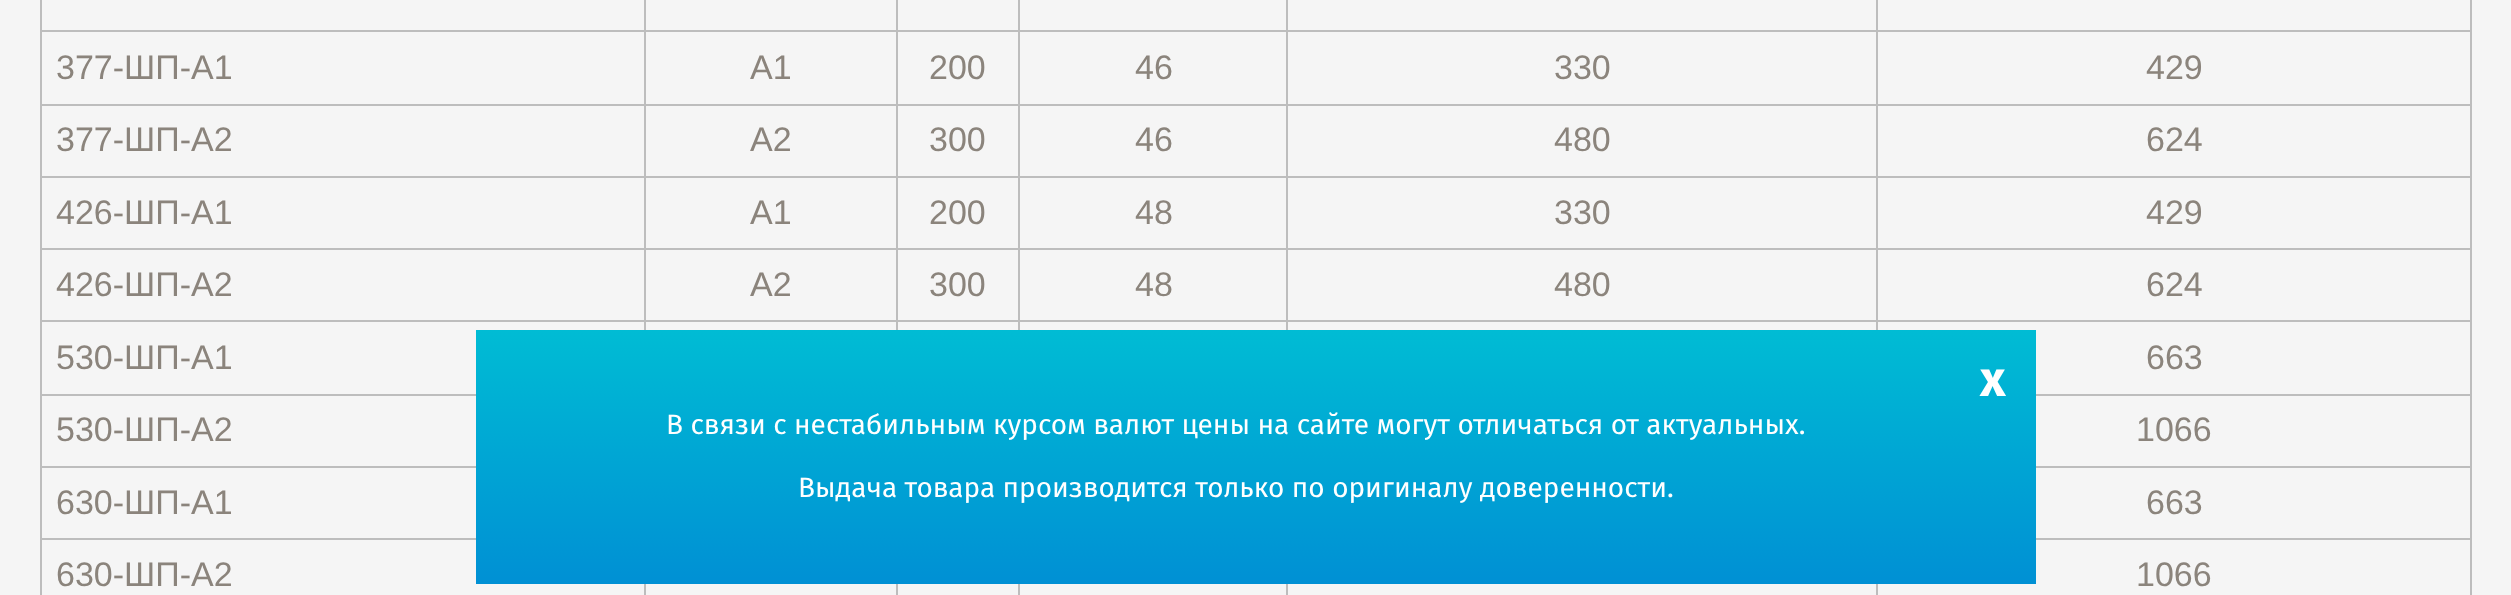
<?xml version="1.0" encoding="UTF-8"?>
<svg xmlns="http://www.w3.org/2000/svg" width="2511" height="595">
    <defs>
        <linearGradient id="g1" gradientUnits="userSpaceOnUse" x1="1256" y1="330" x2="1256" y2="584"><stop offset="0" stop-color="#00BCD4"/><stop offset="1" stop-color="#0090D4"/></linearGradient>
    </defs>
    <rect width="100%" height="100%" fill="#F5F5F5"/>
    <rect x="2470" y="0" width="2" height="595" fill="#BDBDBD"/>
    <rect x="40" y="0" width="2" height="595" fill="#BDBDBD"/>
    <rect x="1876" y="30" width="596" height="2" fill="#BDBDBD"/>
    <rect x="1876" y="104" width="596" height="2" fill="#BDBDBD"/>
    <rect x="1876" y="176" width="596" height="2" fill="#BDBDBD"/>
    <rect x="1876" y="248" width="596" height="2" fill="#BDBDBD"/>
    <rect x="1876" y="320" width="596" height="2" fill="#BDBDBD"/>
    <rect x="1876" y="320" width="2" height="10" fill="#BDBDBD"/>
    <rect x="1286" y="320" width="592" height="2" fill="#BDBDBD"/>
    <rect x="1876" y="248" width="2" height="74" fill="#BDBDBD"/>
    <rect x="1286" y="248" width="592" height="2" fill="#BDBDBD"/>
    <rect x="1876" y="176" width="2" height="74" fill="#BDBDBD"/>
    <rect x="1286" y="176" width="592" height="2" fill="#BDBDBD"/>
    <rect x="1876" y="104" width="2" height="74" fill="#BDBDBD"/>
    <rect x="1286" y="104" width="592" height="2" fill="#BDBDBD"/>
    <rect x="1876" y="30" width="2" height="76" fill="#BDBDBD"/>
    <rect x="1286" y="30" width="592" height="2" fill="#BDBDBD"/>
    <rect x="1286" y="320" width="2" height="10" fill="#BDBDBD"/>
    <rect x="1018" y="320" width="270" height="2" fill="#BDBDBD"/>
    <rect x="1286" y="248" width="2" height="74" fill="#BDBDBD"/>
    <rect x="1018" y="248" width="270" height="2" fill="#BDBDBD"/>
    <rect x="1286" y="176" width="2" height="74" fill="#BDBDBD"/>
    <rect x="1018" y="176" width="270" height="2" fill="#BDBDBD"/>
    <rect x="1286" y="104" width="2" height="74" fill="#BDBDBD"/>
    <rect x="1018" y="104" width="270" height="2" fill="#BDBDBD"/>
    <rect x="1286" y="30" width="2" height="76" fill="#BDBDBD"/>
    <rect x="1018" y="30" width="270" height="2" fill="#BDBDBD"/>
    <rect x="1018" y="320" width="2" height="10" fill="#BDBDBD"/>
    <rect x="896" y="320" width="124" height="2" fill="#BDBDBD"/>
    <rect x="1018" y="248" width="2" height="74" fill="#BDBDBD"/>
    <rect x="896" y="248" width="124" height="2" fill="#BDBDBD"/>
    <rect x="1018" y="176" width="2" height="74" fill="#BDBDBD"/>
    <rect x="896" y="176" width="124" height="2" fill="#BDBDBD"/>
    <rect x="1018" y="104" width="2" height="74" fill="#BDBDBD"/>
    <rect x="896" y="104" width="124" height="2" fill="#BDBDBD"/>
    <rect x="1018" y="30" width="2" height="76" fill="#BDBDBD"/>
    <rect x="896" y="30" width="124" height="2" fill="#BDBDBD"/>
    <rect x="896" y="320" width="2" height="10" fill="#BDBDBD"/>
    <rect x="644" y="320" width="254" height="2" fill="#BDBDBD"/>
    <rect x="896" y="248" width="2" height="74" fill="#BDBDBD"/>
    <rect x="644" y="248" width="254" height="2" fill="#BDBDBD"/>
    <rect x="896" y="176" width="2" height="74" fill="#BDBDBD"/>
    <rect x="644" y="176" width="254" height="2" fill="#BDBDBD"/>
    <rect x="896" y="104" width="2" height="74" fill="#BDBDBD"/>
    <rect x="644" y="104" width="254" height="2" fill="#BDBDBD"/>
    <rect x="896" y="30" width="2" height="76" fill="#BDBDBD"/>
    <rect x="644" y="30" width="254" height="2" fill="#BDBDBD"/>
    <rect x="644" y="320" width="2" height="10" fill="#BDBDBD"/>
    <rect x="40" y="320" width="606" height="2" fill="#BDBDBD"/>
    <rect x="644" y="248" width="2" height="74" fill="#BDBDBD"/>
    <rect x="40" y="248" width="606" height="2" fill="#BDBDBD"/>
    <rect x="644" y="176" width="2" height="74" fill="#BDBDBD"/>
    <rect x="40" y="176" width="606" height="2" fill="#BDBDBD"/>
    <rect x="644" y="104" width="2" height="74" fill="#BDBDBD"/>
    <rect x="40" y="104" width="606" height="2" fill="#BDBDBD"/>
    <rect x="644" y="30" width="2" height="76" fill="#BDBDBD"/>
    <rect x="40" y="30" width="606" height="2" fill="#BDBDBD"/>
    <rect x="644" y="0" width="2" height="32" fill="#BDBDBD"/>
    <rect x="896" y="0" width="2" height="32" fill="#BDBDBD"/>
    <rect x="1018" y="0" width="2" height="32" fill="#BDBDBD"/>
    <rect x="1286" y="0" width="2" height="32" fill="#BDBDBD"/>
    <rect x="1876" y="0" width="2" height="32" fill="#BDBDBD"/>
    <text x="56" y="79" font-family="Liberation Sans" font-size="34" fill="#8B847C">377-ШП-А1</text>
    <text x="750" y="79" font-family="Liberation Sans" font-size="34" fill="#8B847C">А1</text>
    <text x="929" y="79" font-family="Liberation Sans" font-size="34" fill="#8B847C">200</text>
    <text x="1135" y="79" font-family="Liberation Sans" font-size="34" fill="#8B847C">46</text>
    <text x="1554" y="79" font-family="Liberation Sans" font-size="34" fill="#8B847C">330</text>
    <text x="2146" y="79" font-family="Liberation Sans" font-size="34" fill="#8B847C">429</text>
    <text x="56" y="151" font-family="Liberation Sans" font-size="34" fill="#8B847C">377-ШП-А2</text>
    <text x="750" y="151" font-family="Liberation Sans" font-size="34" fill="#8B847C">А2</text>
    <text x="929" y="151" font-family="Liberation Sans" font-size="34" fill="#8B847C">300</text>
    <text x="1135" y="151" font-family="Liberation Sans" font-size="34" fill="#8B847C">46</text>
    <text x="1554" y="151" font-family="Liberation Sans" font-size="34" fill="#8B847C">480</text>
    <text x="2146" y="151" font-family="Liberation Sans" font-size="34" fill="#8B847C">624</text>
    <text x="56" y="224" font-family="Liberation Sans" font-size="34" fill="#8B847C">426-ШП-А1</text>
    <text x="750" y="224" font-family="Liberation Sans" font-size="34" fill="#8B847C">А1</text>
    <text x="929" y="224" font-family="Liberation Sans" font-size="34" fill="#8B847C">200</text>
    <text x="1135" y="224" font-family="Liberation Sans" font-size="34" fill="#8B847C">48</text>
    <text x="1554" y="224" font-family="Liberation Sans" font-size="34" fill="#8B847C">330</text>
    <text x="2146" y="224" font-family="Liberation Sans" font-size="34" fill="#8B847C">429</text>
    <text x="56" y="296" font-family="Liberation Sans" font-size="34" fill="#8B847C">426-ШП-А2</text>
    <text x="750" y="296" font-family="Liberation Sans" font-size="34" fill="#8B847C">А2</text>
    <text x="929" y="296" font-family="Liberation Sans" font-size="34" fill="#8B847C">300</text>
    <text x="1135" y="296" font-family="Liberation Sans" font-size="34" fill="#8B847C">48</text>
    <text x="1554" y="296" font-family="Liberation Sans" font-size="34" fill="#8B847C">480</text>
    <text x="2146" y="296" font-family="Liberation Sans" font-size="34" fill="#8B847C">624</text>
    <text x="56" y="369" font-family="Liberation Sans" font-size="34" fill="#8B847C">530-ШП-А1</text>
    <text x="2146" y="369" font-family="Liberation Sans" font-size="34" fill="#8B847C">663</text>
    <rect x="40" y="394" width="436" height="2" fill="#BDBDBD"/>
    <text x="56" y="441" font-family="Liberation Sans" font-size="34" fill="#8B847C">530-ШП-А2</text>
    <rect x="2036" y="394" width="436" height="2" fill="#BDBDBD"/>
    <text x="2136" y="441" font-family="Liberation Sans" font-size="34" fill="#8B847C">1066</text>
    <rect x="40" y="466" width="436" height="2" fill="#BDBDBD"/>
    <text x="56" y="514" font-family="Liberation Sans" font-size="34" fill="#8B847C">630-ШП-А1</text>
    <rect x="2036" y="466" width="436" height="2" fill="#BDBDBD"/>
    <text x="2146" y="514" font-family="Liberation Sans" font-size="34" fill="#8B847C">663</text>
    <rect x="40" y="538" width="436" height="2" fill="#BDBDBD"/>
    <text x="56" y="586" font-family="Liberation Sans" font-size="34" fill="#8B847C">630-ШП-А2</text>
    <rect x="2036" y="538" width="436" height="2" fill="#BDBDBD"/>
    <rect x="1876" y="584" width="2" height="11" fill="#BDBDBD"/>
    <text x="2136" y="586" font-family="Liberation Sans" font-size="34" fill="#8B847C">1066</text>
    <rect x="644" y="584" width="2" height="11" fill="#BDBDBD"/>
    <rect x="896" y="584" width="2" height="11" fill="#BDBDBD"/>
    <rect x="1018" y="584" width="2" height="11" fill="#BDBDBD"/>
    <rect x="1286" y="584" width="2" height="11" fill="#BDBDBD"/>
    <rect x="476" y="330" width="1560" height="254" fill="url(#g1)"/>
    <text x="1980" y="396" font-family="Fira Sans" font-size="50" font-weight="700" fill="#FFFFFF">x</text>
    <text x="666" y="434" font-family="Fira Sans" font-size="28" fill="#FFFFFF">В связи с нестабильным курсом валют цены на сайте могут отличаться от актуальных.</text>
    <text x="798" y="497" font-family="Fira Sans" font-size="28" fill="#FFFFFF">Выдача товара производится только по оригиналу доверенности.</text>
</svg>
